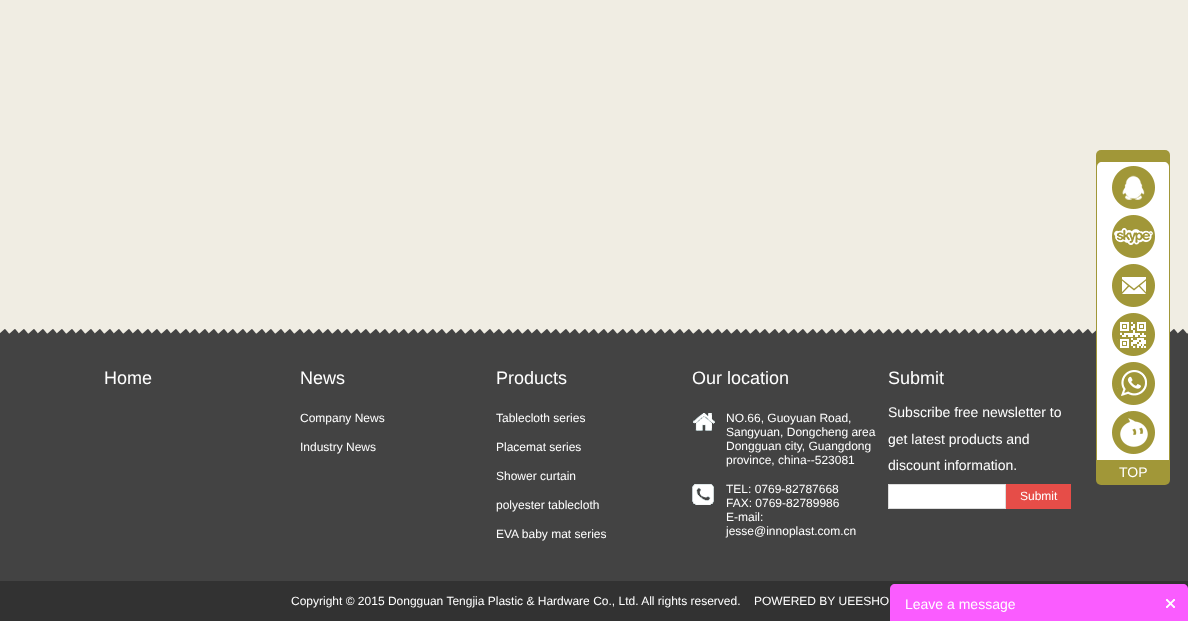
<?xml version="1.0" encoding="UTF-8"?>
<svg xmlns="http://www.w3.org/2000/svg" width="1188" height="621">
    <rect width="100%" height="100%" fill="#F0EDE3"/>
    <image x="0" y="329" width="1188" height="5" href="img_01.png"/>
    <rect x="0" y="334" width="1188" height="247" fill="#434343"/>
    <text x="104" y="384" font-family="Liberation Sans" font-size="18" fill="#FFFFFF">Home</text>
    <text x="300" y="384" font-family="Liberation Sans" font-size="18" fill="#FFFFFF">News</text>
    <text x="300" y="422" font-family="Liberation Sans" font-size="12" fill="#FFFFFF">Company News</text>
    <text x="300" y="451" font-family="Liberation Sans" font-size="12" fill="#FFFFFF">Industry News</text>
    <text x="496" y="384" font-family="Liberation Sans" font-size="18" fill="#FFFFFF">Products</text>
    <text x="496" y="422" font-family="Liberation Sans" font-size="12" fill="#FFFFFF">Tablecloth series</text>
    <text x="496" y="451" font-family="Liberation Sans" font-size="12" fill="#FFFFFF">Placemat series</text>
    <text x="496" y="480" font-family="Liberation Sans" font-size="12" fill="#FFFFFF">Shower curtain</text>
    <text x="496" y="509" font-family="Liberation Sans" font-size="12" fill="#FFFFFF">polyester tablecloth</text>
    <text x="496" y="538" font-family="Liberation Sans" font-size="12" fill="#FFFFFF">EVA baby mat series</text>
    <text x="692" y="384" font-family="Liberation Sans" font-size="18" fill="#FFFFFF">Our location</text>
    <image x="693" y="413" width="22" height="18" href="img_02.png"/>
    <text font-family="Liberation Sans" font-size="12" fill="#FFFFFF">
        <tspan x="726" y="422">NO.66, Guoyuan Road,</tspan>
        <tspan x="726" y="436">Sangyuan, Dongcheng area</tspan>
        <tspan x="726" y="450">Dongguan city, Guangdong</tspan>
        <tspan x="726" y="464">province, china--523081</tspan>
    </text>
    <image x="692" y="484" width="22" height="21" href="img_03.png"/>
    <text font-family="Liberation Sans" font-size="12" fill="#FFFFFF">
        <tspan x="726" y="493">TEL: 0769-82787668</tspan>
        <tspan x="726" y="507">FAX: 0769-82789986</tspan>
        <tspan x="726" y="521">E-mail:</tspan>
        <tspan x="726" y="535">jesse@innoplast.com.cn</tspan>
    </text>
    <text x="888" y="384" font-family="Liberation Sans" font-size="18" fill="#FFFFFF">Submit</text>
    <text font-family="Liberation Sans" font-size="14" fill="#FFFFFF">
        <tspan x="888" y="417">Subscribe free newsletter to</tspan>
        <tspan x="888" y="444">get latest products and</tspan>
        <tspan x="888" y="470">discount information.</tspan>
    </text>
    <rect x="888.5" y="484.5" width="117" height="24" fill="#FFFFFF" stroke="#DDDDDD"/>
    <rect x="1006" y="484" width="65" height="25" fill="#E64D48"/>
    <text x="1020" y="500" font-family="Liberation Sans" font-size="12" fill="#FFFFFF">Submit</text>
    <rect x="0" y="581" width="1188" height="40" fill="#323232"/>
    <text x="291" y="605" font-family="Liberation Sans" font-size="12" fill="#FFFFFF">Copyright © 2015 Dongguan Tengjia Plastic &amp; Hardware Co., Ltd. All rights reserved.</text>
    <text x="754" y="605" font-family="Liberation Sans" font-size="12" fill="#FFFFFF">POWERED BY UEESHO</text>
    <rect x="1096" y="150" width="74" height="335" rx="5" fill="#A19738"/>
    <path d="M 1102 162 H 1164 C 1167 162 1169 164 1169 167 V 460 H 1097 V 167 C 1097 164 1099 162 1102 162 Z" fill="#FFFFFF"/>
    <rect x="1112" y="166" width="43" height="288" fill="#A19738"/>
    <image x="1112" y="166" width="43" height="43" href="img_04.png"/>
    <rect x="1112" y="209" width="43" height="6" fill="#FFFFFF"/>
    <image x="1112" y="215" width="43" height="43" href="img_05.png"/>
    <rect x="1112" y="258" width="43" height="6" fill="#FFFFFF"/>
    <image x="1112" y="264" width="43" height="43" href="img_06.png"/>
    <rect x="1112" y="307" width="43" height="6" fill="#FFFFFF"/>
    <image x="1112" y="313" width="43" height="43" href="img_07.png"/>
    <rect x="1112" y="356" width="43" height="6" fill="#FFFFFF"/>
    <image x="1112" y="362" width="43" height="43" href="img_08.png"/>
    <rect x="1112" y="405" width="43" height="6" fill="#FFFFFF"/>
    <image x="1112" y="411" width="43" height="43" href="img_09.png"/>
    <text x="1119" y="477" font-family="Liberation Sans" font-size="14" fill="#FFFFFF">TOP</text>
    <path d="M 895 584 H 1183 C 1186 584 1188 586 1188 589 V 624 H 890 V 589 C 890 586 892 584 895 584 Z" fill="#FA5CFF"/>
    <text x="905" y="609" font-family="Liberation Sans" font-size="14" fill="#FFFFFF">Leave a message</text>
    <image x="1166" y="599" width="9" height="9" href="img_10.png"/>
</svg>
